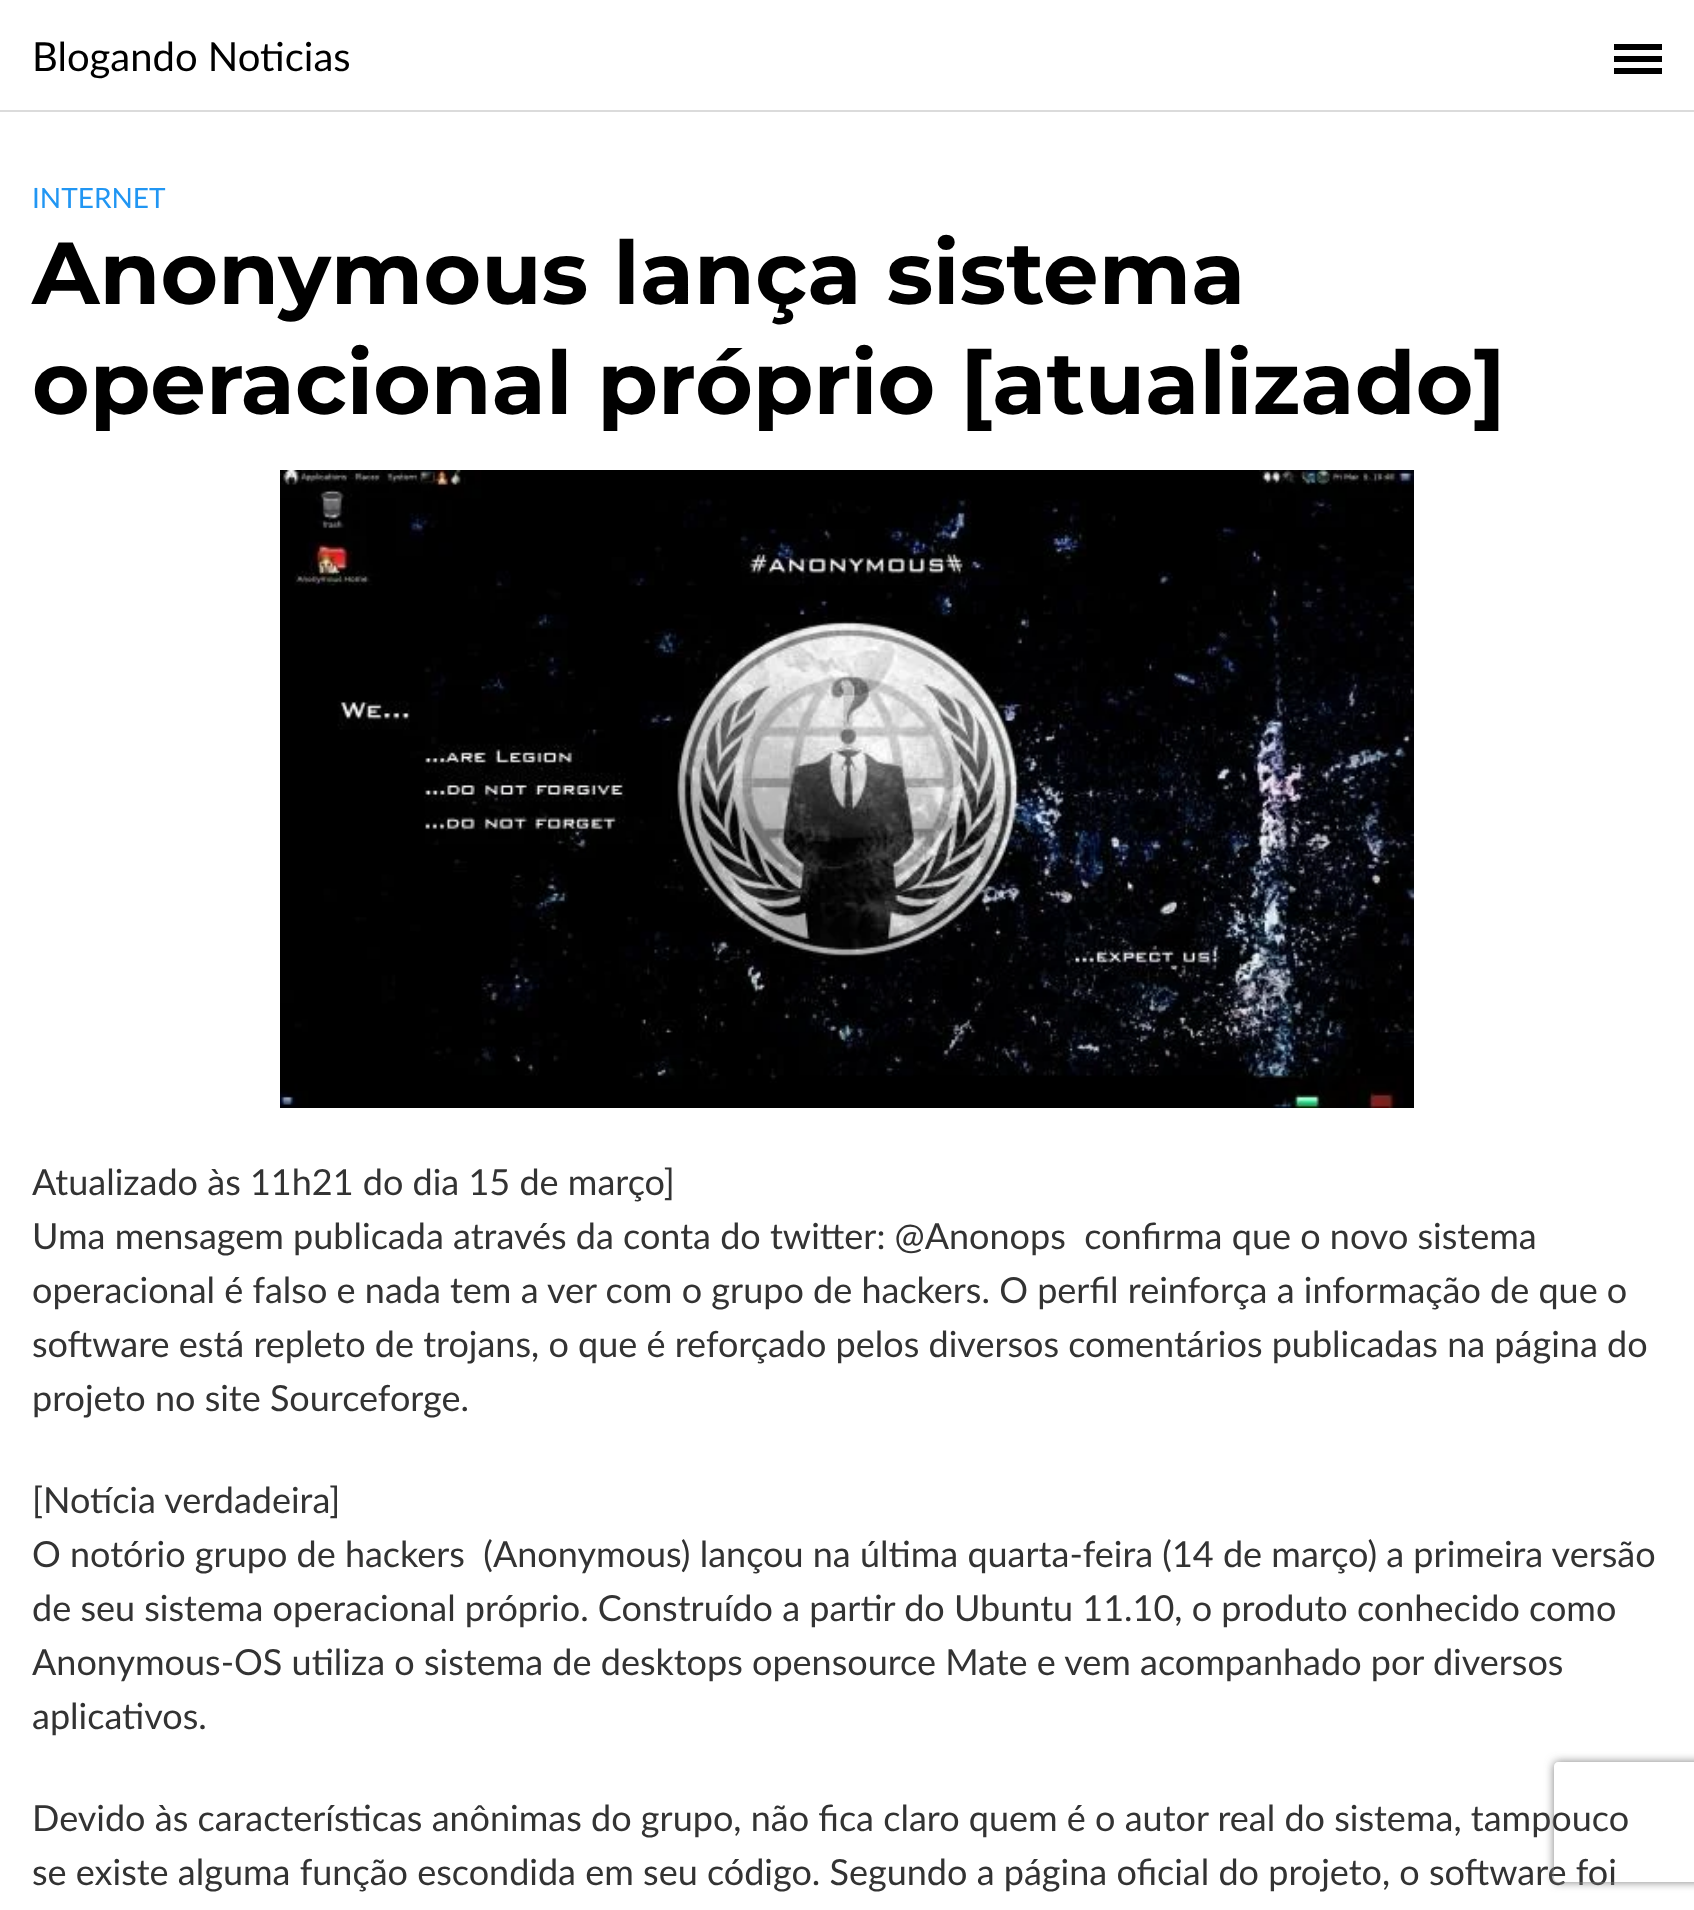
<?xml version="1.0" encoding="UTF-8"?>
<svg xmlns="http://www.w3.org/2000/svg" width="1694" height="1910">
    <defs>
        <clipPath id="clip1"><path d="M 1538 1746 H 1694 V 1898 H 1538 Z M 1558 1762 H 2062 C 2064 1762 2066 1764 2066 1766 V 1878 C 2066 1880 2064 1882 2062 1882 H 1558 C 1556 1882 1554 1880 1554 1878 V 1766 C 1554 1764 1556 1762 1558 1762 Z" clip-rule="evenodd"/></clipPath>
        <filter id="blur1" x="-50%" y="-200%" width="200%" height="500%"><feGaussianBlur stdDeviation="5"/></filter>
    </defs>
    <rect width="100%" height="100%" fill="#FFFFFF"/>
    <rect x="0" y="110" width="1694" height="2" fill="#DBDBDB"/>
    <text x="32" y="71" font-family="Lato" font-size="40" fill="#000000">Blogando Noticias</text>
    <rect x="1614" y="56" width="48" height="6" fill="#000000"/>
    <rect x="1614" y="44" width="48" height="6" fill="#000000"/>
    <rect x="1614" y="68" width="48" height="6" fill="#000000"/>
    <text x="32" y="208" font-family="Lato" font-size="28" fill="#2196F3">INTERNET</text>
    <text font-family="Montserrat" font-size="88" font-weight="700" fill="#000000">
        <tspan x="32" y="304">Anonymous lança sistema</tspan>
        <tspan x="32" y="414">operacional próprio [atualizado]</tspan>
    </text>
    <image x="280" y="470" width="1134" height="638" href="img_01.png"/>
    <text font-family="Lato" font-size="36" fill="#333333" xml:space="preserve"><tspan x="32" y="1195">Atualizado às 11h21 do dia 15 de março]</tspan><tspan x="32" y="1249">Uma mensagem publicada através da conta do twitter: @Anonops  confirma que o novo sistema</tspan><tspan x="32" y="1303">operacional é falso e nada tem a ver com o grupo de hackers. O perfil reinforça a informação de que o</tspan><tspan x="32" y="1357">software está repleto de trojans, o que é reforçado pelos diversos comentários publicadas na página do</tspan><tspan x="32" y="1411">projeto no site Sourceforge.</tspan></text>
    <text font-family="Lato" font-size="36" fill="#333333" xml:space="preserve"><tspan x="32" y="1513">[Notícia verdadeira]</tspan><tspan x="32" y="1567">O notório grupo de hackers  (Anonymous) lançou na última quarta-feira (14 de março) a primeira versão</tspan><tspan x="32" y="1621">de seu sistema operacional próprio. Construído a partir do Ubuntu 11.10, o produto conhecido como</tspan><tspan x="32" y="1675">Anonymous-OS utiliza o sistema de desktops opensource Mate e vem acompanhado por diversos</tspan><tspan x="32" y="1729">aplicativos.</tspan></text>
    <text font-family="Lato" font-size="36" fill="#333333">
        <tspan x="32" y="1831">Devido às características anônimas do grupo, não fica claro quem é o autor real do sistema, tampouco</tspan>
        <tspan x="32" y="1885">se existe alguma função escondida em seu código. Segundo a página oficial do projeto, o software foi</tspan>
    </text>
    <g clip-path="url(#clip1)">
        <rect x="1554" y="1762" width="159" height="120" rx="4" fill="#808080" filter="url(#blur1)"/>
    </g>
</svg>
